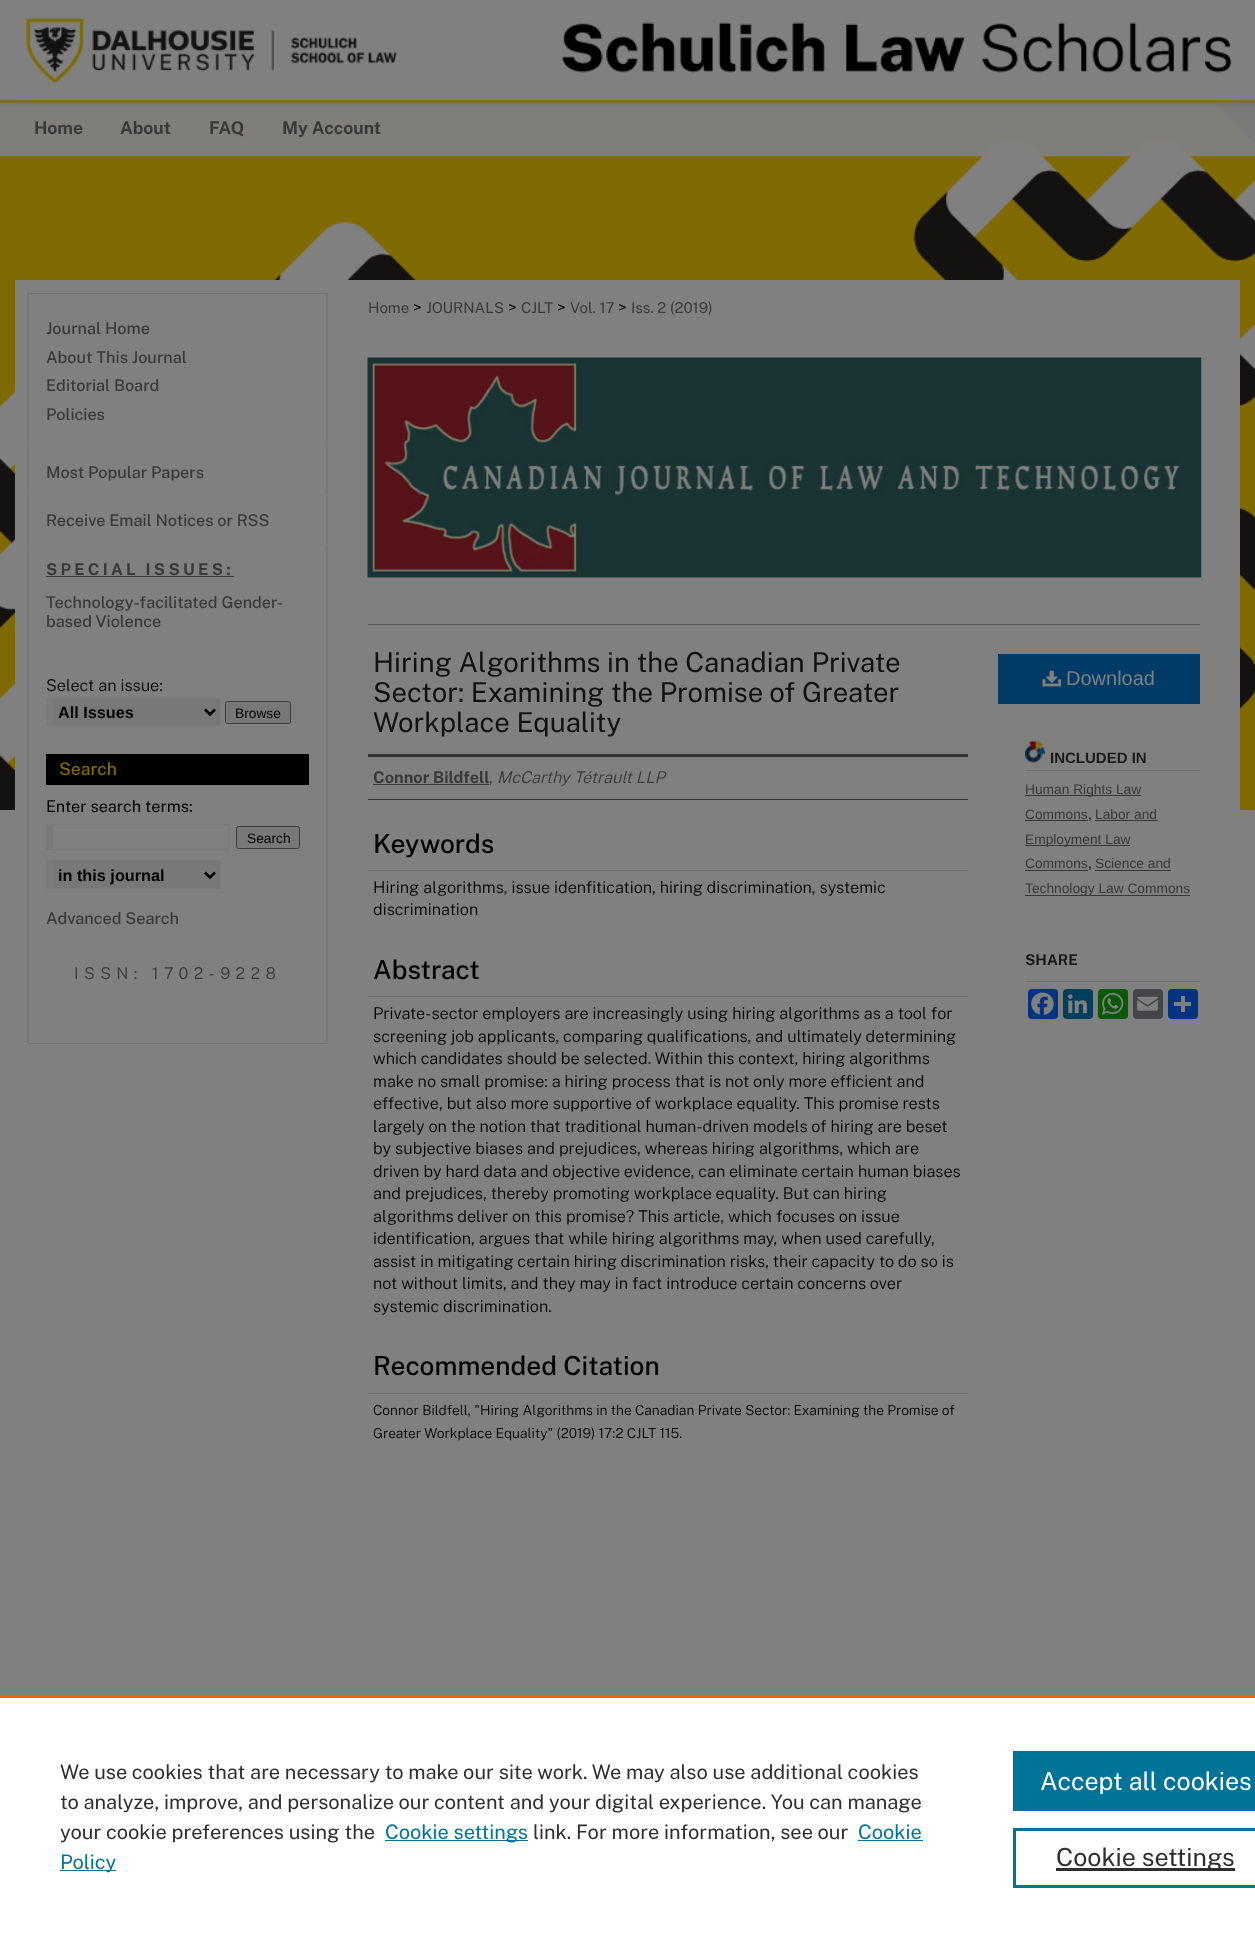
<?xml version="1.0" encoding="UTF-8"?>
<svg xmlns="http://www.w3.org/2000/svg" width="1255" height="1937">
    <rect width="100%" height="100%" fill="#808080"/>
    <image x="0" y="98" width="1255" height="712" href="img_01.png"/>
    <rect x="15" y="99" width="1225" height="1" fill="#808080"/>
    <image x="26" y="18" width="1206" height="65" href="img_02.png"/>
    <text x="34" y="134" font-family="Public Sans" font-size="17.5" font-weight="700" fill="#383A39">Home</text>
    <text x="120" y="134" font-family="Public Sans" font-size="17.5" font-weight="700" fill="#383A39">About</text>
    <text x="209" y="134" font-family="Public Sans" font-size="17.5" font-weight="700" fill="#383A39">FAQ</text>
    <text x="282" y="134" font-family="Public Sans" font-size="17.5" font-weight="700" fill="#383A39">My Account</text>
    <rect x="15" y="280" width="1225" height="530" fill="#808080"/>
    <image x="27" y="292" width="301" height="752" href="img_03.png"/>
    <rect x="28" y="293" width="300" height="1" fill="#727272"/>
    <rect x="28" y="1043" width="300" height="1" fill="#727272"/>
    <text font-family="Public Sans" font-size="16.25" font-weight="500" fill="#383A39">
        <tspan x="46" y="334">Journal Home</tspan>
        <tspan x="46" y="363">About This Journal</tspan>
        <tspan x="46" y="391">Editorial Board</tspan>
        <tspan x="46" y="420">Policies</tspan>
    </text>
    <rect x="28" y="446" width="300" height="1" fill="#808080"/>
    <rect x="28" y="495" width="300" height="1" fill="#808080"/>
    <text x="46" y="478" font-family="Public Sans" font-size="16.25" font-weight="500" fill="#383A39">Most Popular Papers</text>
    <rect x="28" y="544" width="300" height="1" fill="#808080"/>
    <text x="46" y="526" font-family="Public Sans" font-size="16.25" font-weight="500" fill="#383A39">Receive Email Notices or RSS</text>
    <text x="46" y="575" font-family="Public Sans" font-size="16.25" font-weight="700" letter-spacing="3.25" fill="#383A39">SPECIAL ISSUES:</text>
    <rect x="46" y="576" width="188" height="1" fill="#383A39"/>
    <text font-family="Public Sans" font-size="16.25" font-weight="500" fill="#383A39">
        <tspan x="46" y="608">Technology-facilitated Gender-</tspan>
        <tspan x="46" y="627">based Violence</tspan>
    </text>
    <text x="46" y="691" font-family="Public Sans" font-size="16.25" font-weight="300" fill="#000000">Select an issue:</text>
    <rect x="53" y="699" width="167" height="26" fill="#787878"/>
    <rect x="46" y="698" width="175" height="1" fill="#7A7A7A"/>
    <rect x="220" y="698" width="1" height="28" fill="#7A7A7A"/>
    <rect x="46" y="725" width="175" height="1" fill="#7A7A7A"/>
    <rect x="46" y="698" width="7" height="28" fill="#7A7A7A"/>
    <path d="M 205 709.5 L 210 714.5 L 215 709.5" fill="none" stroke="#000000" stroke-width="2.5"/>
    <text x="58" y="718" font-family="Liberation Sans" font-size="16.25" font-weight="700" fill="#000000">All Issues</text>
    <rect x="225.5" y="701.5" width="65" height="22" rx="2" fill="#787878" stroke="#3B3B3B"/>
    <text x="235" y="718" font-family="Liberation Sans" font-size="13.75" fill="#000000">Browse</text>
    <rect x="46" y="754" width="263" height="31" fill="#010100"/>
    <text x="59" y="775" font-family="Public Sans" font-size="17.5" font-weight="500" fill="#806A00">Search</text>
    <text x="46" y="812" font-family="Public Sans" font-size="16.25" fill="#000000">Enter search terms:</text>
    <rect x="46" y="824" width="183" height="1" fill="#7A7A7A"/>
    <rect x="228" y="824" width="1" height="26" fill="#7A7A7A"/>
    <rect x="46" y="849" width="183" height="1" fill="#7A7A7A"/>
    <rect x="46" y="824" width="7" height="26" fill="#7A7A7A"/>
    <rect x="236.5" y="826.5" width="63" height="22" rx="2" fill="#787878" stroke="#3B3B3B"/>
    <text x="247" y="843" font-family="Liberation Sans" font-size="13.75" fill="#000000">Search</text>
    <rect x="53" y="861" width="167" height="27" fill="#787878"/>
    <rect x="46" y="860" width="175" height="1" fill="#7A7A7A"/>
    <rect x="220" y="860" width="1" height="29" fill="#7A7A7A"/>
    <rect x="46" y="888" width="175" height="1" fill="#7A7A7A"/>
    <rect x="46" y="860" width="7" height="29" fill="#7A7A7A"/>
    <path d="M 205 872.5 L 210 877.5 L 215 872.5" fill="none" stroke="#000000" stroke-width="2.5"/>
    <text x="58" y="881" font-family="Liberation Sans" font-size="16.25" font-weight="700" fill="#000000">in this journal</text>
    <text x="46" y="924" font-family="Public Sans" font-size="16.25" font-weight="500" fill="#383A39">Advanced Search</text>
    <text x="74" y="979" font-family="Public Sans" font-size="16.25" font-weight="300" letter-spacing="5.4" fill="#383A39">ISSN: 1702-9228</text>
    <text x="368" y="313" font-family="Public Sans" font-size="15" fill="#383A39">Home</text>
    <text x="413" y="313" font-family="Public Sans" font-size="16.25" font-weight="300" fill="#000000">&gt;</text>
    <text x="426" y="313" font-family="Public Sans" font-size="15" fill="#383A39">JOURNALS</text>
    <text x="508" y="313" font-family="Public Sans" font-size="16.25" font-weight="300" fill="#000000">&gt;</text>
    <text x="521" y="313" font-family="Public Sans" font-size="15" fill="#383A39">CJLT</text>
    <text x="557" y="313" font-family="Public Sans" font-size="16.25" font-weight="300" fill="#000000">&gt;</text>
    <text x="570" y="313" font-family="Public Sans" font-size="15" fill="#383A39">Vol. 17</text>
    <text x="618" y="313" font-family="Public Sans" font-size="16.25" font-weight="300" fill="#000000">&gt;</text>
    <text x="631" y="313" font-family="Public Sans" font-size="15" fill="#383A39">Iss. 2 (2019)</text>
    <image x="367" y="357" width="835" height="221" href="img_04.png"/>
    <rect x="368" y="624" width="832" height="1" fill="#555555"/>
    <text font-family="Public Sans" font-size="27.5" fill="#111111">
        <tspan x="373" y="672">Hiring Algorithms in the Canadian Private</tspan>
        <tspan x="373" y="702">Sector: Examining the Promise of Greater</tspan>
        <tspan x="373" y="732">Workplace Equality</tspan>
    </text>
    <rect x="368" y="754" width="600" height="3" fill="#333333"/>
    <rect x="368" y="799" width="600" height="1" fill="#333333"/>
    <text x="373" y="783" font-family="Public Sans" font-size="16.25" font-weight="700" fill="#383A39">Connor Bildfell</text>
    <rect x="373" y="784" width="116" height="1" fill="#383A39"/>
    <text x="489" y="783" font-family="Public Sans" font-size="16.25" font-weight="300" fill="#383A39">,</text>
    <text x="497" y="783" font-family="Public Sans" font-size="16.25" font-weight="300" font-style="italic" fill="#383A39">McCarthy Tétrault LLP</text>
    <rect x="368" y="870" width="600" height="1" fill="#6C6C6C"/>
    <text x="373" y="853" font-family="Public Sans" font-size="26.25" font-weight="500" fill="#000000">Keywords</text>
    <text font-family="Public Sans" font-size="16.25" font-weight="300" fill="#000000">
        <tspan x="373" y="893">Hiring algorithms, issue idenfitication, hiring discrimination, systemic</tspan>
        <tspan x="373" y="915">discrimination</tspan>
    </text>
    <rect x="368" y="996" width="600" height="1" fill="#6C6C6C"/>
    <text x="373" y="979" font-family="Public Sans" font-size="26.25" font-weight="500" fill="#000000">Abstract</text>
    <text font-family="Public Sans" font-size="16.25" font-weight="300" fill="#000000">
        <tspan x="373" y="1019">Private-sector employers are increasingly using hiring algorithms as a tool for</tspan>
        <tspan x="373" y="1042">screening job applicants, comparing qualifications, and ultimately determining</tspan>
        <tspan x="373" y="1064">which candidates should be selected. Within this context, hiring algorithms</tspan>
        <tspan x="373" y="1087">make no small promise: a hiring process that is not only more efficient and</tspan>
        <tspan x="373" y="1109">effective, but also more supportive of workplace equality. This promise rests</tspan>
        <tspan x="373" y="1132">largely on the notion that traditional human-driven models of hiring are beset</tspan>
        <tspan x="373" y="1154">by subjective biases and prejudices, whereas hiring algorithms, which are</tspan>
        <tspan x="373" y="1177">driven by hard data and objective evidence, can eliminate certain human biases</tspan>
        <tspan x="373" y="1199">and prejudices, thereby promoting workplace equality. But can hiring</tspan>
        <tspan x="373" y="1222">algorithms deliver on this promise? This article, which focuses on issue</tspan>
        <tspan x="373" y="1244">identification, argues that while hiring algorithms may, when used carefully,</tspan>
        <tspan x="373" y="1267">assist in mitigating certain hiring discrimination risks, their capacity to do so is</tspan>
        <tspan x="373" y="1289">not without limits, and they may in fact introduce certain concerns over</tspan>
        <tspan x="373" y="1312">systemic discrimination.</tspan>
    </text>
    <rect x="368" y="1393" width="600" height="1" fill="#6C6C6C"/>
    <text x="373" y="1375" font-family="Public Sans" font-size="26.25" font-weight="500" fill="#000000">Recommended Citation</text>
    <text font-family="Public Sans" font-size="13.75" font-weight="300" fill="#000000">
        <tspan x="373" y="1415">Connor Bildfell, "Hiring Algorithms in the Canadian Private Sector: Examining the Promise of</tspan>
        <tspan x="373" y="1438">Greater Workplace Equality" (2019) 17:2 CJLT 115.</tspan>
    </text>
    <rect x="998" y="654" width="202" height="50" fill="#003A66"/>
    <image x="1042" y="670" width="20" height="17" href="img_05.png"/>
    <text x="1066" y="685" font-family="Liberation Sans" font-size="20" fill="#808080">Download</text>
    <image x="1025" y="741" width="20" height="22" href="img_06.png"/>
    <rect x="1025" y="770" width="175" height="1" fill="#6F6F6F"/>
    <text x="1050" y="763" font-family="Liberation Sans" font-size="15" font-weight="700" fill="#1A1A1A">INCLUDED IN</text>
    <rect x="1025" y="795" width="116" height="1" fill="#383A39"/>
    <text font-family="Liberation Sans" font-size="13.75" fill="#383A39">
        <tspan x="1025" y="794">Human Rights Law</tspan>
        <tspan x="1025" y="819">Commons</tspan>
    </text>
    <rect x="1025" y="820" width="63" height="1" fill="#383A39"/>
    <text x="1088" y="819" font-family="Liberation Sans" font-size="13.75" fill="#000000">,</text>
    <text x="1095" y="819" font-family="Liberation Sans" font-size="13.75" fill="#383A39">Labor and</text>
    <rect x="1095" y="820" width="63" height="1" fill="#383A39"/>
    <rect x="1025" y="845" width="105" height="1" fill="#383A39"/>
    <text font-family="Liberation Sans" font-size="13.75" fill="#383A39">
        <tspan x="1025" y="844">Employment Law</tspan>
        <tspan x="1025" y="868">Commons</tspan>
    </text>
    <rect x="1025" y="870" width="63" height="1" fill="#383A39"/>
    <text x="1088" y="868" font-family="Liberation Sans" font-size="13.75" fill="#000000">,</text>
    <text x="1095" y="868" font-family="Liberation Sans" font-size="13.75" fill="#383A39">Science and</text>
    <rect x="1095" y="870" width="76" height="1" fill="#383A39"/>
    <rect x="1025" y="895" width="165" height="1" fill="#383A39"/>
    <text x="1025" y="893" font-family="Liberation Sans" font-size="13.75" fill="#383A39">Technology Law Commons</text>
    <rect x="1025" y="981" width="175" height="1" fill="#6F6F6F"/>
    <text x="1025" y="965" font-family="Public Sans" font-size="15" font-weight="700" fill="#1A1A1A">SHARE</text>
    <rect x="1028" y="989" width="30" height="30" rx="4" fill="#043380"/>
    <image x="1031" y="992" width="23" height="23" href="img_07.png"/>
    <rect x="1063" y="989" width="30" height="30" rx="4" fill="#003E5B"/>
    <image x="1068" y="994" width="19" height="20" href="img_08.png"/>
    <rect x="1098" y="989" width="30" height="30" rx="4" fill="#095805"/>
    <image x="1101" y="992" width="23" height="23" href="img_09.png"/>
    <rect x="1133" y="989" width="30" height="30" rx="4" fill="#444548"/>
    <image x="1137" y="996" width="21" height="15" href="img_10.png"/>
    <rect x="1168" y="989" width="30" height="30" rx="4" fill="#013380"/>
    <rect x="1181" y="996" width="4" height="16" fill="#808080"/>
    <rect x="1174" y="1002" width="17" height="4" fill="#808080"/>
    <rect x="0" y="1698" width="1255" height="239" fill="#FFFFFF"/>
    <rect x="0" y="1695" width="1255" height="3" fill="#EB6500"/>
    <text font-family="Public Sans" font-size="20" fill="#2E2E2E">
        <tspan x="60" y="1779">We use cookies that are necessary to make our site work. We may also use additional cookies</tspan>
        <tspan x="60" y="1809">to analyze, improve, and personalize our content and your digital experience. You can manage</tspan>
        <tspan x="60" y="1839">your cookie preferences using the</tspan>
    </text>
    <rect x="385" y="1840" width="143" height="1" fill="#007398"/>
    <text x="385" y="1839" font-family="Public Sans" font-size="20" fill="#007398">Cookie settings</text>
    <text x="533" y="1839" font-family="Public Sans" font-size="20" fill="#2E2E2E">link. For more information, see our</text>
    <text x="858" y="1839" font-family="Public Sans" font-size="20" fill="#007398">Cookie</text>
    <rect x="858" y="1840" width="65" height="1" fill="#007398"/>
    <rect x="60" y="1870" width="56" height="1" fill="#007398"/>
    <text x="60" y="1869" font-family="Public Sans" font-size="20" fill="#007398">Policy</text>
    <rect x="1013" y="1751" width="242" height="60" fill="#007398"/>
    <text x="1040" y="1790" font-family="Public Sans" font-size="25" fill="#FFFFFF">Accept all cookies</text>
    <rect x="1014.5" y="1829.5" width="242" height="57" fill="none" stroke="#007398" stroke-width="3"/>
    <rect x="1056" y="1868" width="179" height="3" fill="#2E2E2E"/>
    <text x="1056" y="1866" font-family="Public Sans" font-size="25" fill="#2E2E2E">Cookie settings</text>
</svg>
